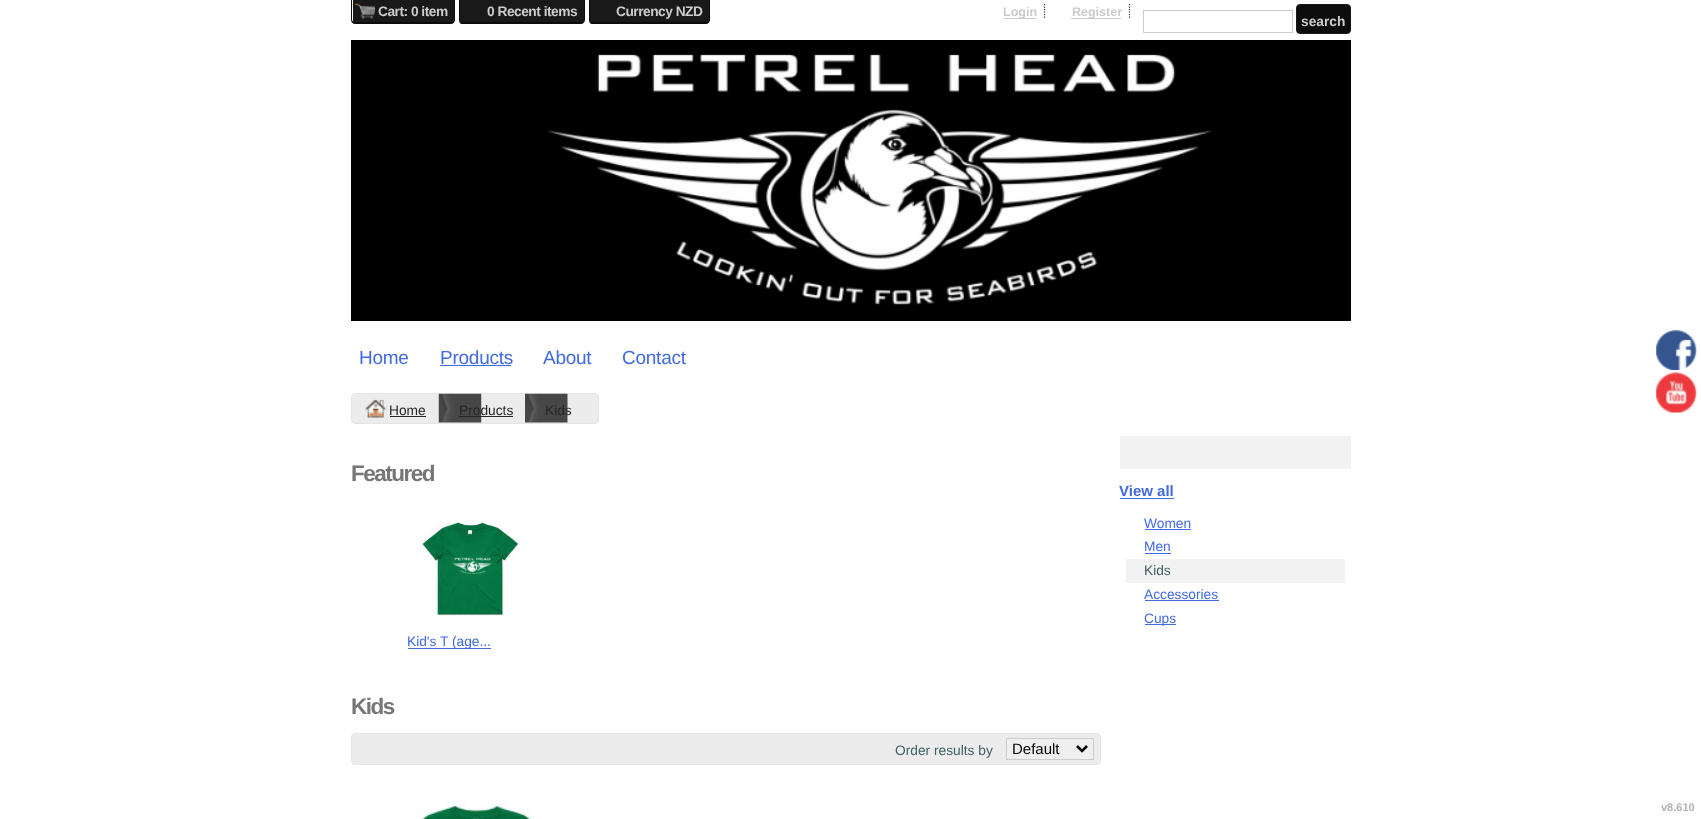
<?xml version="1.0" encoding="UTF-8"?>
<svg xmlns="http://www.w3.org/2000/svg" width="1701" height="819">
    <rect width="100%" height="100%" fill="#FFFFFF"/>
    <path d="M 353 0 H 454 V 20.5 C 454 22 453 23 451.5 23 H 355.5 C 354 23 353 22 353 20.5 Z" fill="#191919"/>
    <path d="M 351 0 H 455 V 20 C 455 22 453 24 451 24 H 355 C 353 24 351 22 351 20 Z M 352 0 H 454 V 20 C 454 21 453 22 451 22 H 355 C 354 22 352 21 352 20 Z" fill="#0C0C0C" fill-rule="evenodd"/>
    <image x="355" y="3" width="20" height="16" href="img_01.png"/>
    <text x="378" y="16" font-family="Liberation Sans" font-size="13.75" font-weight="700" letter-spacing="-0.5" fill="#CCCCCC">Cart: 0 item</text>
    <path d="M 460 0 H 584 V 20.5 C 584 22 583 23 581.5 23 H 462.5 C 461 23 460 22 460 20.5 Z" fill="#191919"/>
    <path d="M 459 0 H 585 V 20 C 585 22 583 24 581 24 H 462 C 460 24 459 22 459 20 Z M 460 0 H 584 V 20 C 584 21 583 22 581 22 H 462 C 461 22 460 21 460 20 Z" fill="#0C0C0C" fill-rule="evenodd"/>
    <text x="487" y="16" font-family="Liberation Sans" font-size="13.75" font-weight="700" letter-spacing="-0.5" fill="#CCCCCC">0 Recent items</text>
    <path d="M 590 0 H 709 V 20.5 C 709 22 708 23 706.5 23 H 592.5 C 591 23 590 22 590 20.5 Z" fill="#191919"/>
    <path d="M 589 0 H 710 V 20 C 710 22 708 24 706 24 H 592 C 590 24 589 22 589 20 Z M 590 0 H 709 V 20 C 709 21 708 22 706 22 H 592 C 591 22 590 21 590 20 Z" fill="#0C0C0C" fill-rule="evenodd"/>
    <text x="616" y="16" font-family="Liberation Sans" font-size="13.75" font-weight="700" letter-spacing="-0.5" fill="#CCCCCC">Currency NZD</text>
    <path d="M 1044.5 4 V 19" fill="none" stroke="#333333" stroke-width="1.2" stroke-dasharray="1.25 1.25"/>
    <rect x="1004" y="18" width="32" height="1" fill="#CCCCCC"/>
    <text x="1003" y="16" font-family="Liberation Sans" font-size="12.5" font-weight="700" fill="#CCCCCC">Login</text>
    <path d="M 1129.5 4 V 19" fill="none" stroke="#333333" stroke-width="1.2" stroke-dasharray="1.25 1.25"/>
    <rect x="1071" y="18" width="50" height="1" fill="#CCCCCC"/>
    <text x="1072" y="16" font-family="Liberation Sans" font-size="12.5" font-weight="700" fill="#CCCCCC">Register</text>
    <rect x="1143.5" y="10.5" width="149" height="22" fill="none" stroke="#CCCCCC"/>
    <rect x="1296.5" y="4.5" width="54" height="29" rx="3.5" fill="#0C0C0C" stroke="#191919"/>
    <text x="1301" y="26" font-family="Liberation Sans" font-size="13.75" font-weight="700" fill="#CCCCCC">search</text>
    <rect x="351" y="40" width="1000" height="281" fill="#000000"/>
    <image x="547" y="54" width="666" height="251" href="img_02.png"/>
    <text x="359" y="364" font-family="Liberation Sans" font-size="19" letter-spacing="-0.25" fill="#4169E1">Home</text>
    <text x="440" y="364" font-family="Liberation Sans" font-size="19" letter-spacing="-0.25" fill="#4169E1">Products</text>
    <rect x="440" y="365" width="71" height="1" fill="#4169E1"/>
    <text x="543" y="364" font-family="Liberation Sans" font-size="19" letter-spacing="-0.25" fill="#4169E1">About</text>
    <text x="622" y="364" font-family="Liberation Sans" font-size="19" letter-spacing="-0.25" fill="#4169E1">Contact</text>
    <rect x="351.5" y="393.5" width="247" height="30" rx="3.5" fill="#ECECEC" stroke="#E5E5E5"/>
    <image x="365" y="399" width="22" height="20" href="img_03.png"/>
    <text x="389" y="415" font-family="Liberation Sans" font-size="13.75" fill="#252525">Home</text>
    <rect x="390" y="416" width="36" height="1" fill="#252525"/>
    <image x="438" y="393" width="44" height="30" href="img_04.png"/>
    <text x="459" y="415" font-family="Liberation Sans" font-size="13.75" fill="#252525">Products</text>
    <rect x="459" y="416" width="54" height="1" fill="#252525"/>
    <image x="525" y="393" width="43" height="30" href="img_05.png"/>
    <text x="545" y="415" font-family="Liberation Sans" font-size="13.75" fill="#252525">Kids</text>
    <text x="351" y="481" font-family="Liberation Sans" font-size="22.5" font-weight="700" letter-spacing="-1.5" fill="#767676">Featured</text>
    <image x="419" y="519" width="103" height="97" href="img_06.png"/>
    <rect x="408" y="648" width="83" height="1" fill="#4169E1"/>
    <text x="407" y="646" font-family="Liberation Sans" font-size="13.75" fill="#4169E1">Kid's T (age...</text>
    <text x="351" y="714" font-family="Liberation Sans" font-size="22.5" font-weight="700" letter-spacing="-1.5" fill="#767676">Kids</text>
    <rect x="351.5" y="733.5" width="749" height="31" rx="3.5" fill="#ECECEC" stroke="#E5E5E5"/>
    <text x="895" y="755" font-family="Liberation Sans" font-size="13.75" fill="#3F6060">Order results by</text>
    <rect x="1006.5" y="738.5" width="87" height="21" fill="#EFEFEF" stroke="#CCCCCC"/>
    <path d="M 1077 746 L 1082 751 L 1087 746" fill="none" stroke="#000000" stroke-width="2.5"/>
    <text x="1012" y="754" font-family="Liberation Sans" font-size="15" fill="#000000">Default</text>
    <image x="410" y="798" width="123" height="21" href="img_07.png"/>
    <rect x="1120" y="436" width="231" height="33" fill="#F2F2F2"/>
    <text x="1119" y="496" font-family="Liberation Sans" font-size="15" font-weight="700" fill="#4169E1">View all</text>
    <rect x="1120" y="498" width="54" height="1" fill="#4169E1"/>
    <text x="1144" y="528" font-family="Liberation Sans" font-size="13.75" fill="#4169E1">Women</text>
    <rect x="1145" y="529" width="46" height="1" fill="#4169E1"/>
    <text x="1144" y="551" font-family="Liberation Sans" font-size="13.75" fill="#4169E1">Men</text>
    <rect x="1145" y="553" width="26" height="1" fill="#4169E1"/>
    <rect x="1126" y="559" width="219" height="24" fill="#F2F2F2"/>
    <text x="1144" y="575" font-family="Liberation Sans" font-size="13.75" fill="#3F6060">Kids</text>
    <text x="1144" y="599" font-family="Liberation Sans" font-size="13.75" fill="#4169E1">Accessories</text>
    <rect x="1145" y="600" width="74" height="1" fill="#4169E1"/>
    <rect x="1145" y="624" width="31" height="1" fill="#4169E1"/>
    <text x="1144" y="623" font-family="Liberation Sans" font-size="13.75" fill="#4169E1">Cups</text>
    <text x="1661" y="811" font-family="Liberation Sans" font-size="11" font-weight="700" fill="#B2B2B2">v8.610</text>
    <image x="1656" y="330" width="41" height="40" href="img_08.png"/>
    <image x="1656" y="372" width="41" height="41" href="img_09.png"/>
</svg>
